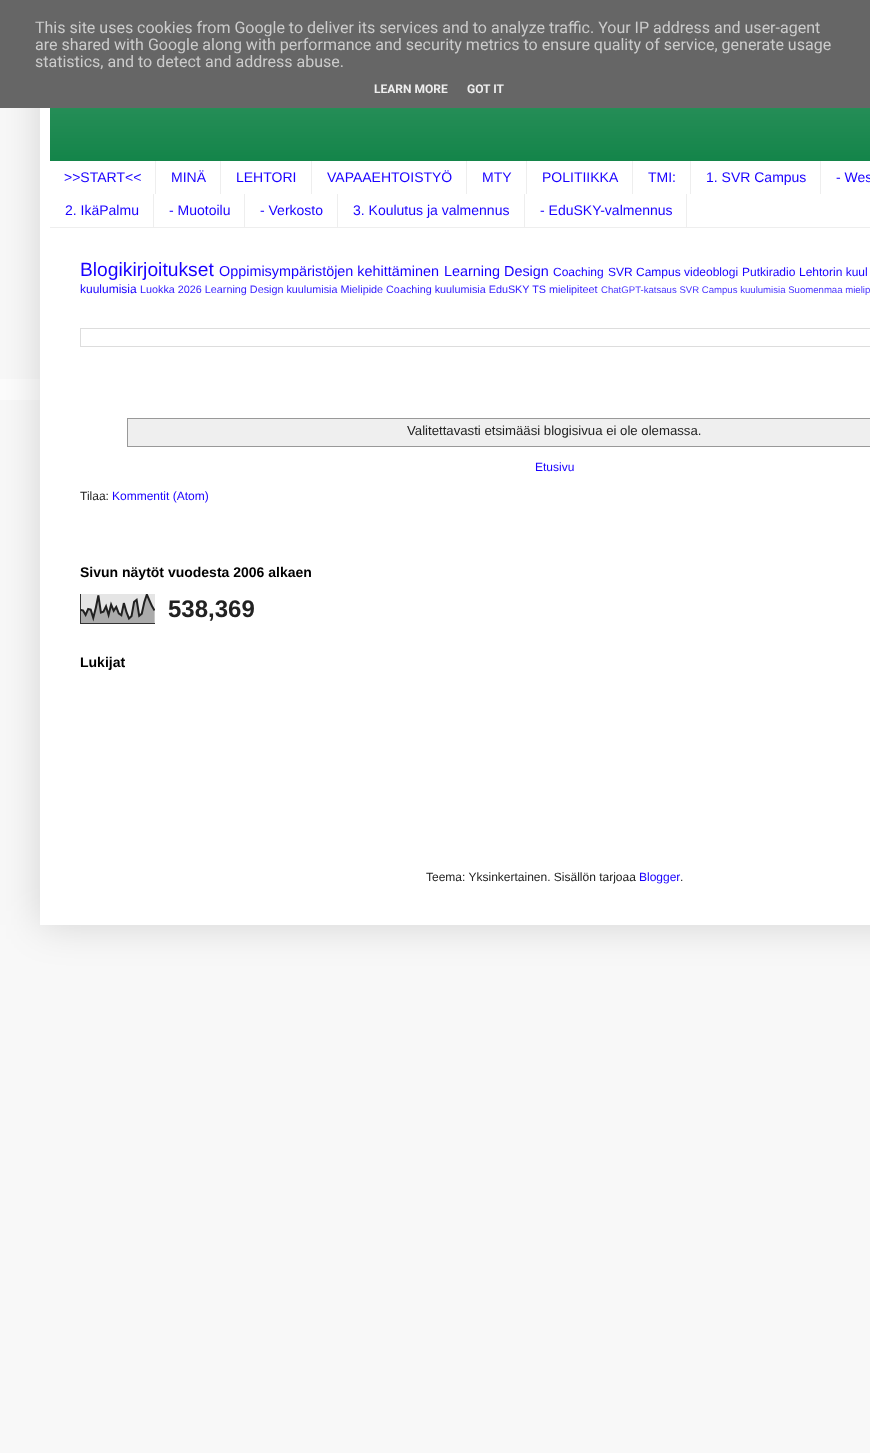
<?xml version="1.0" encoding="UTF-8"?>
<svg xmlns="http://www.w3.org/2000/svg" width="870" height="1453">
    <defs>
        <filter id="blur1" x="-50%" y="-200%" width="200%" height="500%"><feGaussianBlur stdDeviation="20"/></filter>
    </defs>
    <rect width="100%" height="100%" fill="#F8F8F8"/>
    <image x="0" y="379" width="40" height="21" href="img_01.png"/>
    <rect x="40" y="30" width="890" height="895" fill="#000000" fill-opacity="0.15" filter="url(#blur1)"/>
    <rect x="0" y="0" width="870" height="108" fill="#666666"/>
    <text font-family="Roboto" font-size="16" fill="#CCCCCC">
        <tspan x="35" y="33">This site uses cookies from Google to deliver its services and to analyze traffic. Your IP address and user-agent</tspan>
        <tspan x="35" y="50">are shared with Google along with performance and security metrics to ensure quality of service, generate usage</tspan>
        <tspan x="35" y="67">statistics, and to detect and address abuse.</tspan>
    </text>
    <text x="374" y="93" font-family="Roboto" font-size="12" font-weight="700" fill="#EEEEEE">LEARN MORE</text>
    <text x="467" y="93" font-family="Roboto" font-size="12" font-weight="700" fill="#EEEEEE">GOT IT</text>
    <rect x="40" y="108" width="830" height="817" fill="#FFFFFF"/>
    <rect x="50" y="108" width="820" height="53" fill="#0B8043"/>
    <image x="50" y="108" width="820" height="53" href="img_02.png"/>
    <rect x="50" y="227" width="820" height="1" fill="#EEEEEE"/>
    <rect x="155" y="161" width="1" height="33" fill="#EEEEEE"/>
    <text x="64" y="182" font-family="Liberation Sans" font-size="14" fill="#1900FF">&gt;&gt;START&lt;&lt;</text>
    <rect x="220" y="161" width="1" height="33" fill="#EEEEEE"/>
    <text x="171" y="182" font-family="Liberation Sans" font-size="14" fill="#1900FF">MINÄ</text>
    <rect x="311" y="161" width="1" height="33" fill="#EEEEEE"/>
    <text x="236" y="182" font-family="Liberation Sans" font-size="14" fill="#1900FF">LEHTORI</text>
    <rect x="466" y="161" width="1" height="33" fill="#EEEEEE"/>
    <text x="327" y="182" font-family="Liberation Sans" font-size="14" fill="#1900FF">VAPAAEHTOISTYÖ</text>
    <rect x="526" y="161" width="1" height="33" fill="#EEEEEE"/>
    <text x="482" y="182" font-family="Liberation Sans" font-size="14" fill="#1900FF">MTY</text>
    <rect x="632" y="161" width="1" height="33" fill="#EEEEEE"/>
    <text x="542" y="182" font-family="Liberation Sans" font-size="14" fill="#1900FF">POLITIIKKA</text>
    <rect x="690" y="161" width="1" height="33" fill="#EEEEEE"/>
    <text x="648" y="182" font-family="Liberation Sans" font-size="14" fill="#1900FF">TMI:</text>
    <rect x="820" y="161" width="1" height="33" fill="#EEEEEE"/>
    <text x="706" y="182" font-family="Liberation Sans" font-size="14" fill="#1900FF">1. SVR Campus</text>
    <text x="836" y="182" font-family="Liberation Sans" font-size="14" fill="#1900FF">- Wes</text>
    <rect x="153" y="194" width="1" height="33" fill="#EEEEEE"/>
    <text x="65" y="215" font-family="Liberation Sans" font-size="14" fill="#1900FF">2. IkäPalmu</text>
    <rect x="244" y="194" width="1" height="33" fill="#EEEEEE"/>
    <text x="169" y="215" font-family="Liberation Sans" font-size="14" fill="#1900FF">- Muotoilu</text>
    <rect x="337" y="194" width="1" height="33" fill="#EEEEEE"/>
    <text x="260" y="215" font-family="Liberation Sans" font-size="14" fill="#1900FF">- Verkosto</text>
    <rect x="524" y="194" width="1" height="33" fill="#EEEEEE"/>
    <text x="353" y="215" font-family="Liberation Sans" font-size="14" fill="#1900FF">3. Koulutus ja valmennus</text>
    <rect x="686" y="194" width="1" height="33" fill="#EEEEEE"/>
    <text x="540" y="215" font-family="Liberation Sans" font-size="14" fill="#1900FF">- EduSKY-valmennus</text>
    <text x="80" y="276" font-family="Liberation Sans" font-size="19.25" fill="#1900FF">Blogikirjoitukset</text>
    <text x="219" y="276" font-family="Liberation Sans" font-size="14.4" fill="#1900FF">Oppimisympäristöjen kehittäminen</text>
    <text x="444" y="276" font-family="Liberation Sans" font-size="14.4" fill="#1900FF">Learning Design</text>
    <text x="553" y="276" font-family="Liberation Sans" font-size="12" fill="#1900FF">Coaching</text>
    <text x="608" y="276" font-family="Liberation Sans" font-size="12" fill="#1900FF">SVR Campus</text>
    <text x="684" y="276" font-family="Liberation Sans" font-size="12" fill="#1900FF">videoblogi</text>
    <text x="742" y="276" font-family="Liberation Sans" font-size="12" fill="#1900FF">Putkiradio</text>
    <text x="799" y="276" font-family="Liberation Sans" font-size="12" fill="#1900FF">Lehtorin kuul</text>
    <text x="80" y="293" font-family="Liberation Sans" font-size="12" fill="#1900FF">kuulumisia</text>
    <text x="140" y="293" font-family="Liberation Sans" font-size="10.8" fill="#301AFF">Luokka 2026 Learning Design kuulumisia Mielipide Coaching kuulumisia EduSKY TS mielipiteet</text>
    <text x="601" y="293" font-family="Liberation Sans" font-size="9.6" fill="#4733FF">ChatGPT-katsaus SVR Campus kuulumisia Suomenmaa mielip</text>
    <rect x="80.5" y="328.5" width="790" height="18" fill="none" stroke="#DDDDDD"/>
    <rect x="127.5" y="418.5" width="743" height="28" fill="none" stroke="#999999"/>
    <rect x="128" y="419" width="742" height="27" fill="#EFEFEF"/>
    <text x="407" y="435" font-family="Liberation Sans" font-size="13.2" fill="#222222">Valitettavasti etsimääsi blogisivua ei ole olemassa.</text>
    <text x="535" y="471" font-family="Liberation Sans" font-size="12" fill="#1900FF">Etusivu</text>
    <text x="80" y="500" font-family="Liberation Sans" font-size="12" fill="#222222">Tilaa:</text>
    <text x="112" y="500" font-family="Liberation Sans" font-size="12" fill="#1900FF">Kommentit (Atom)</text>
    <text x="80" y="577" font-family="Liberation Sans" font-size="14" font-weight="700" fill="#000000">Sivun näytöt vuodesta 2006 alkaen</text>
    <image x="80" y="594" width="75" height="30" href="img_03.png"/>
    <text x="168" y="617" font-family="Liberation Sans" font-size="24" font-weight="700" fill="#222222">538,369</text>
    <text x="80" y="667" font-family="Liberation Sans" font-size="14" font-weight="700" fill="#000000">Lukijat</text>
    <text x="426" y="881" font-family="Liberation Sans" font-size="12" fill="#222222">Teema: Yksinkertainen. Sisällön tarjoaa</text>
    <text x="639" y="881" font-family="Liberation Sans" font-size="12" fill="#1900FF">Blogger</text>
    <text x="680" y="881" font-family="Liberation Sans" font-size="12" fill="#222222">.</text>
</svg>
